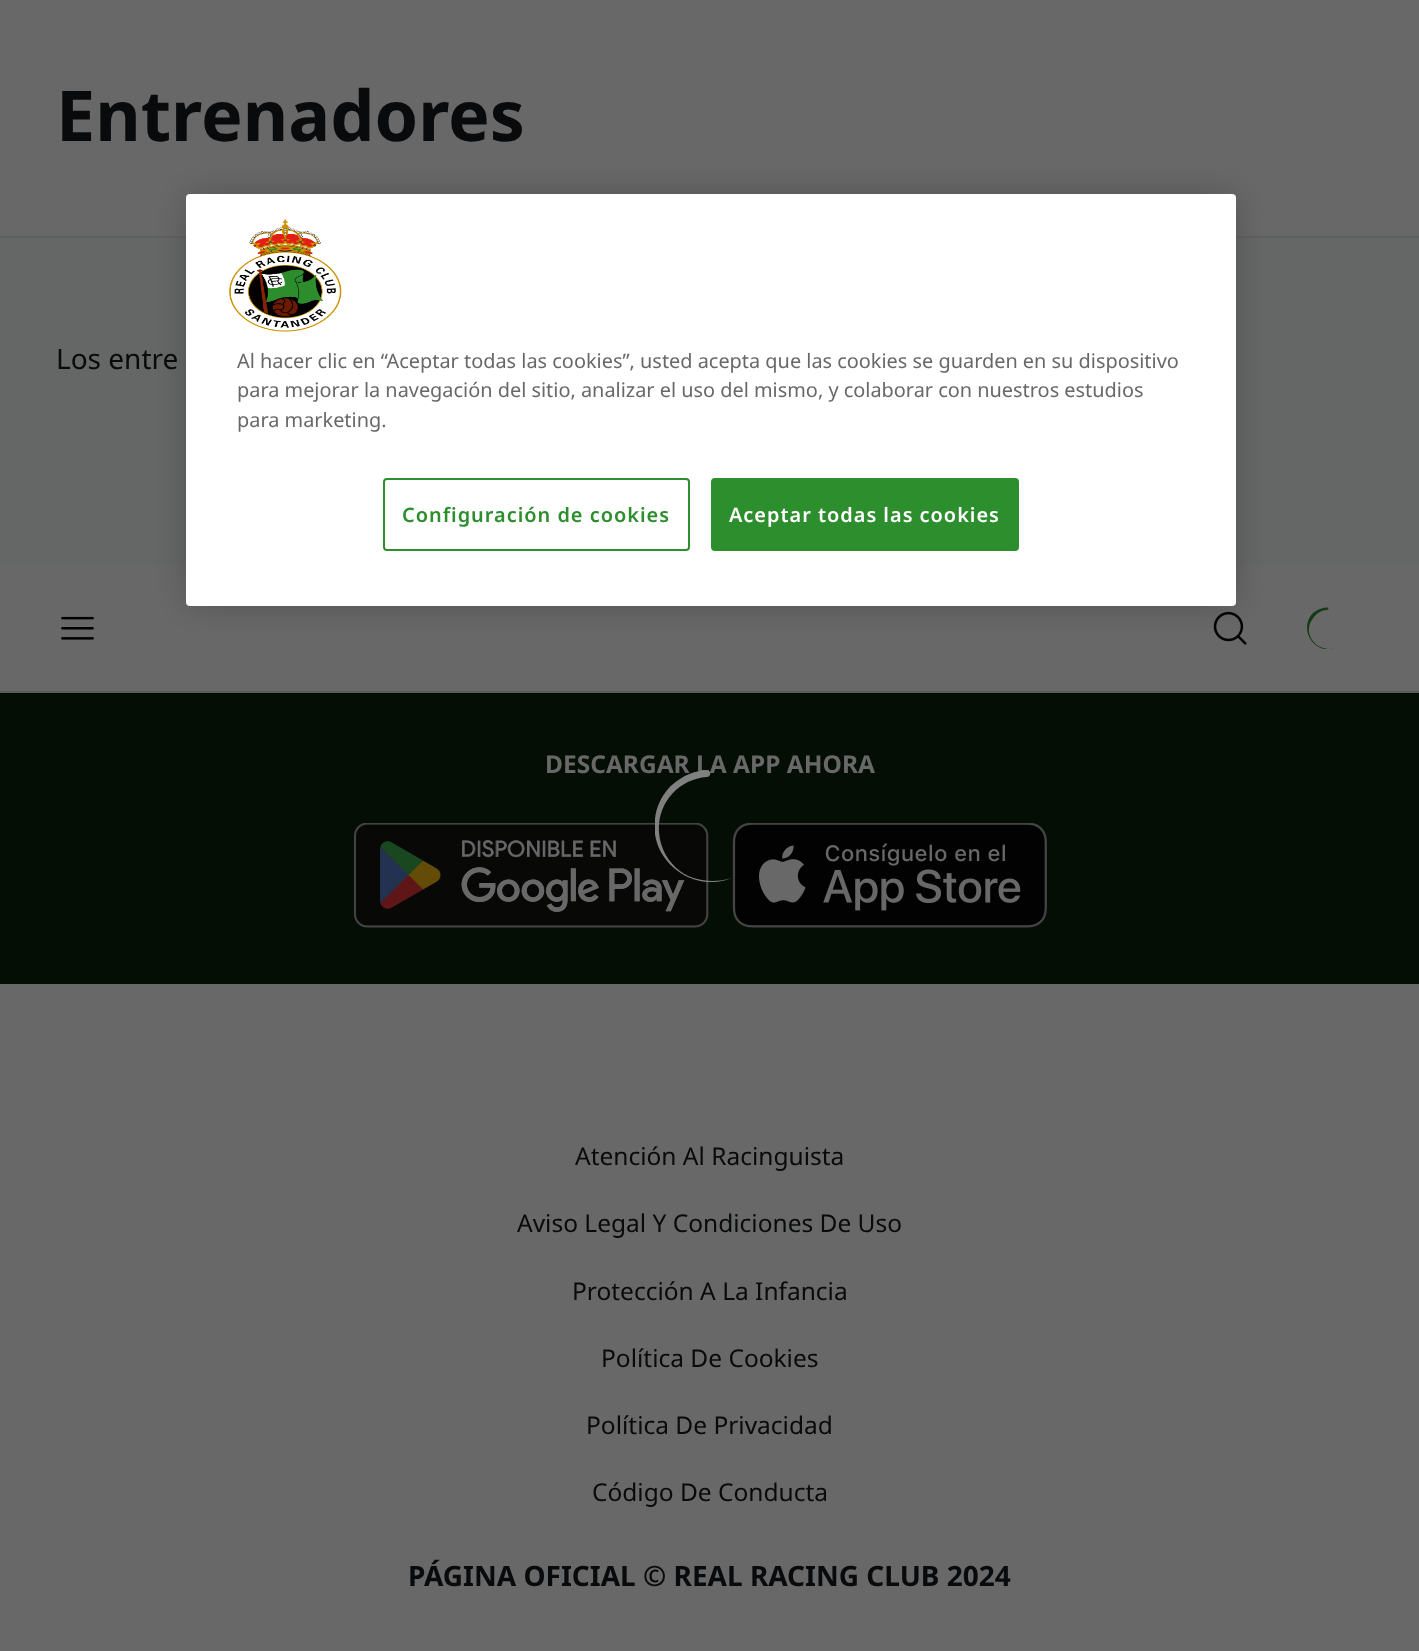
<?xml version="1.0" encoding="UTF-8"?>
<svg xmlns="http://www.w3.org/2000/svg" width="1419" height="1651">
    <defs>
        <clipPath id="clip1"><rect x="1307" y="607" width="42" height="42"/></clipPath>
        <clipPath id="clip2"><rect x="655" y="770" width="112" height="112"/></clipPath>
        <filter id="blur1" x="-50%" y="-200%" width="200%" height="500%"><feGaussianBlur stdDeviation="16"/></filter>
    </defs>
    <rect width="100%" height="100%" fill="#656666"/>
    <rect x="0" y="0" width="1419" height="236" fill="#686868"/>
    <rect x="0" y="236" width="1419" height="2" fill="#5F6062"/>
    <text x="56" y="141" font-family="Noto Sans" font-size="70" font-weight="700" fill="#080A0B">Entrenadores</text>
    <text x="56" y="369" font-family="Noto Sans" font-size="28" fill="#080A0B">Los entre</text>
    <rect x="0" y="565" width="1419" height="126" fill="#686868"/>
    <rect x="0" y="691" width="1419" height="2" fill="#595B5D"/>
    <image x="61" y="616" width="33" height="24" href="img_01.png"/>
    <image x="1213" y="611" width="34" height="34" href="img_02.png"/>
    <g clip-path="url(#clip1)">
        <path d="M 1327 610 C 1322 610 1317 613 1314 617 C 1300 633 1317 654 1336 648 C 1316 656 1298 631 1312 614 C 1315 611 1319 609 1323 608 C 1331 606 1328 610 1327 610 Z" fill="#143B14" fill-rule="evenodd"/>
    </g>
    <rect x="0" y="693" width="1419" height="291" fill="#050E04"/>
    <text x="545" y="773" font-family="Noto Sans" font-size="24.5" font-weight="700" fill="#686868">DESCARGAR LA APP AHORA</text>
    <image x="353" y="823" width="356" height="105" href="img_03.png"/>
    <image x="732" y="823" width="315" height="105" href="img_04.png"/>
    <rect x="0" y="984" width="1419" height="667" fill="#686868"/>
    <text x="575" y="1165" font-family="Noto Sans" font-size="24.5" fill="#080A0B">Atención Al Racinguista</text>
    <text x="517" y="1232" font-family="Noto Sans" font-size="24.5" fill="#080A0B">Aviso Legal Y Condiciones De Uso</text>
    <text x="572" y="1300" font-family="Noto Sans" font-size="24.5" fill="#080A0B">Protección A La Infancia</text>
    <text x="601" y="1367" font-family="Noto Sans" font-size="24.5" fill="#080A0B">Política De Cookies</text>
    <text x="586" y="1434" font-family="Noto Sans" font-size="24.5" fill="#080A0B">Política De Privacidad</text>
    <text x="592" y="1501" font-family="Noto Sans" font-size="24.5" fill="#080A0B">Código De Conducta</text>
    <text x="408" y="1586" font-family="Noto Sans" font-size="28" font-weight="700" fill="#080A0B">PÁGINA OFICIAL © REAL RACING CLUB 2024</text>
    <g clip-path="url(#clip2)">
        <path d="M 707 777 C 678 779 657 804 659 832 C 660 848 668 862 680 871 C 695 882 715 883 732 878 C 693 894 649 861 655 819 C 656 808 661 797 668 789 C 675 781 685 775 695 772 C 696 772 708 768 710 772 C 711 775 709 777 707 777 Z" fill="#808080" fill-rule="evenodd"/>
    </g>
    <rect x="186" y="194" width="1050" height="412" rx="4" fill="#000000" fill-opacity="0.2" filter="url(#blur1)"/>
    <rect x="186" y="194" width="1050" height="412" rx="4" fill="#FFFFFF"/>
    <image x="229" y="219" width="113" height="113" href="img_05.png"/>
    <text font-family="Noto Sans" font-size="19.9" fill="#686868">
        <tspan x="237" y="368">Al hacer clic en “Aceptar todas las cookies”, usted acepta que las cookies se guarden en su dispositivo</tspan>
        <tspan x="237" y="397">para mejorar la navegación del sitio, analizar el uso del mismo, y colaborar con nuestros estudios</tspan>
        <tspan x="237" y="427">para marketing.</tspan>
    </text>
    <rect x="384" y="479" width="305" height="71" rx="3" fill="none" stroke="#2D8E2D" stroke-width="2"/>
    <text x="402" y="522" font-family="Noto Sans" font-size="19.9" font-weight="600" letter-spacing="1" fill="#2D8E2D">Configuración de cookies</text>
    <rect x="712" y="479" width="306" height="71" rx="3" fill="#2D8E2D" stroke="#2D8E2D" stroke-width="2"/>
    <text x="729" y="522" font-family="Noto Sans" font-size="19.9" font-weight="600" letter-spacing="1" fill="#FFFFFF">Aceptar todas las cookies</text>
</svg>
